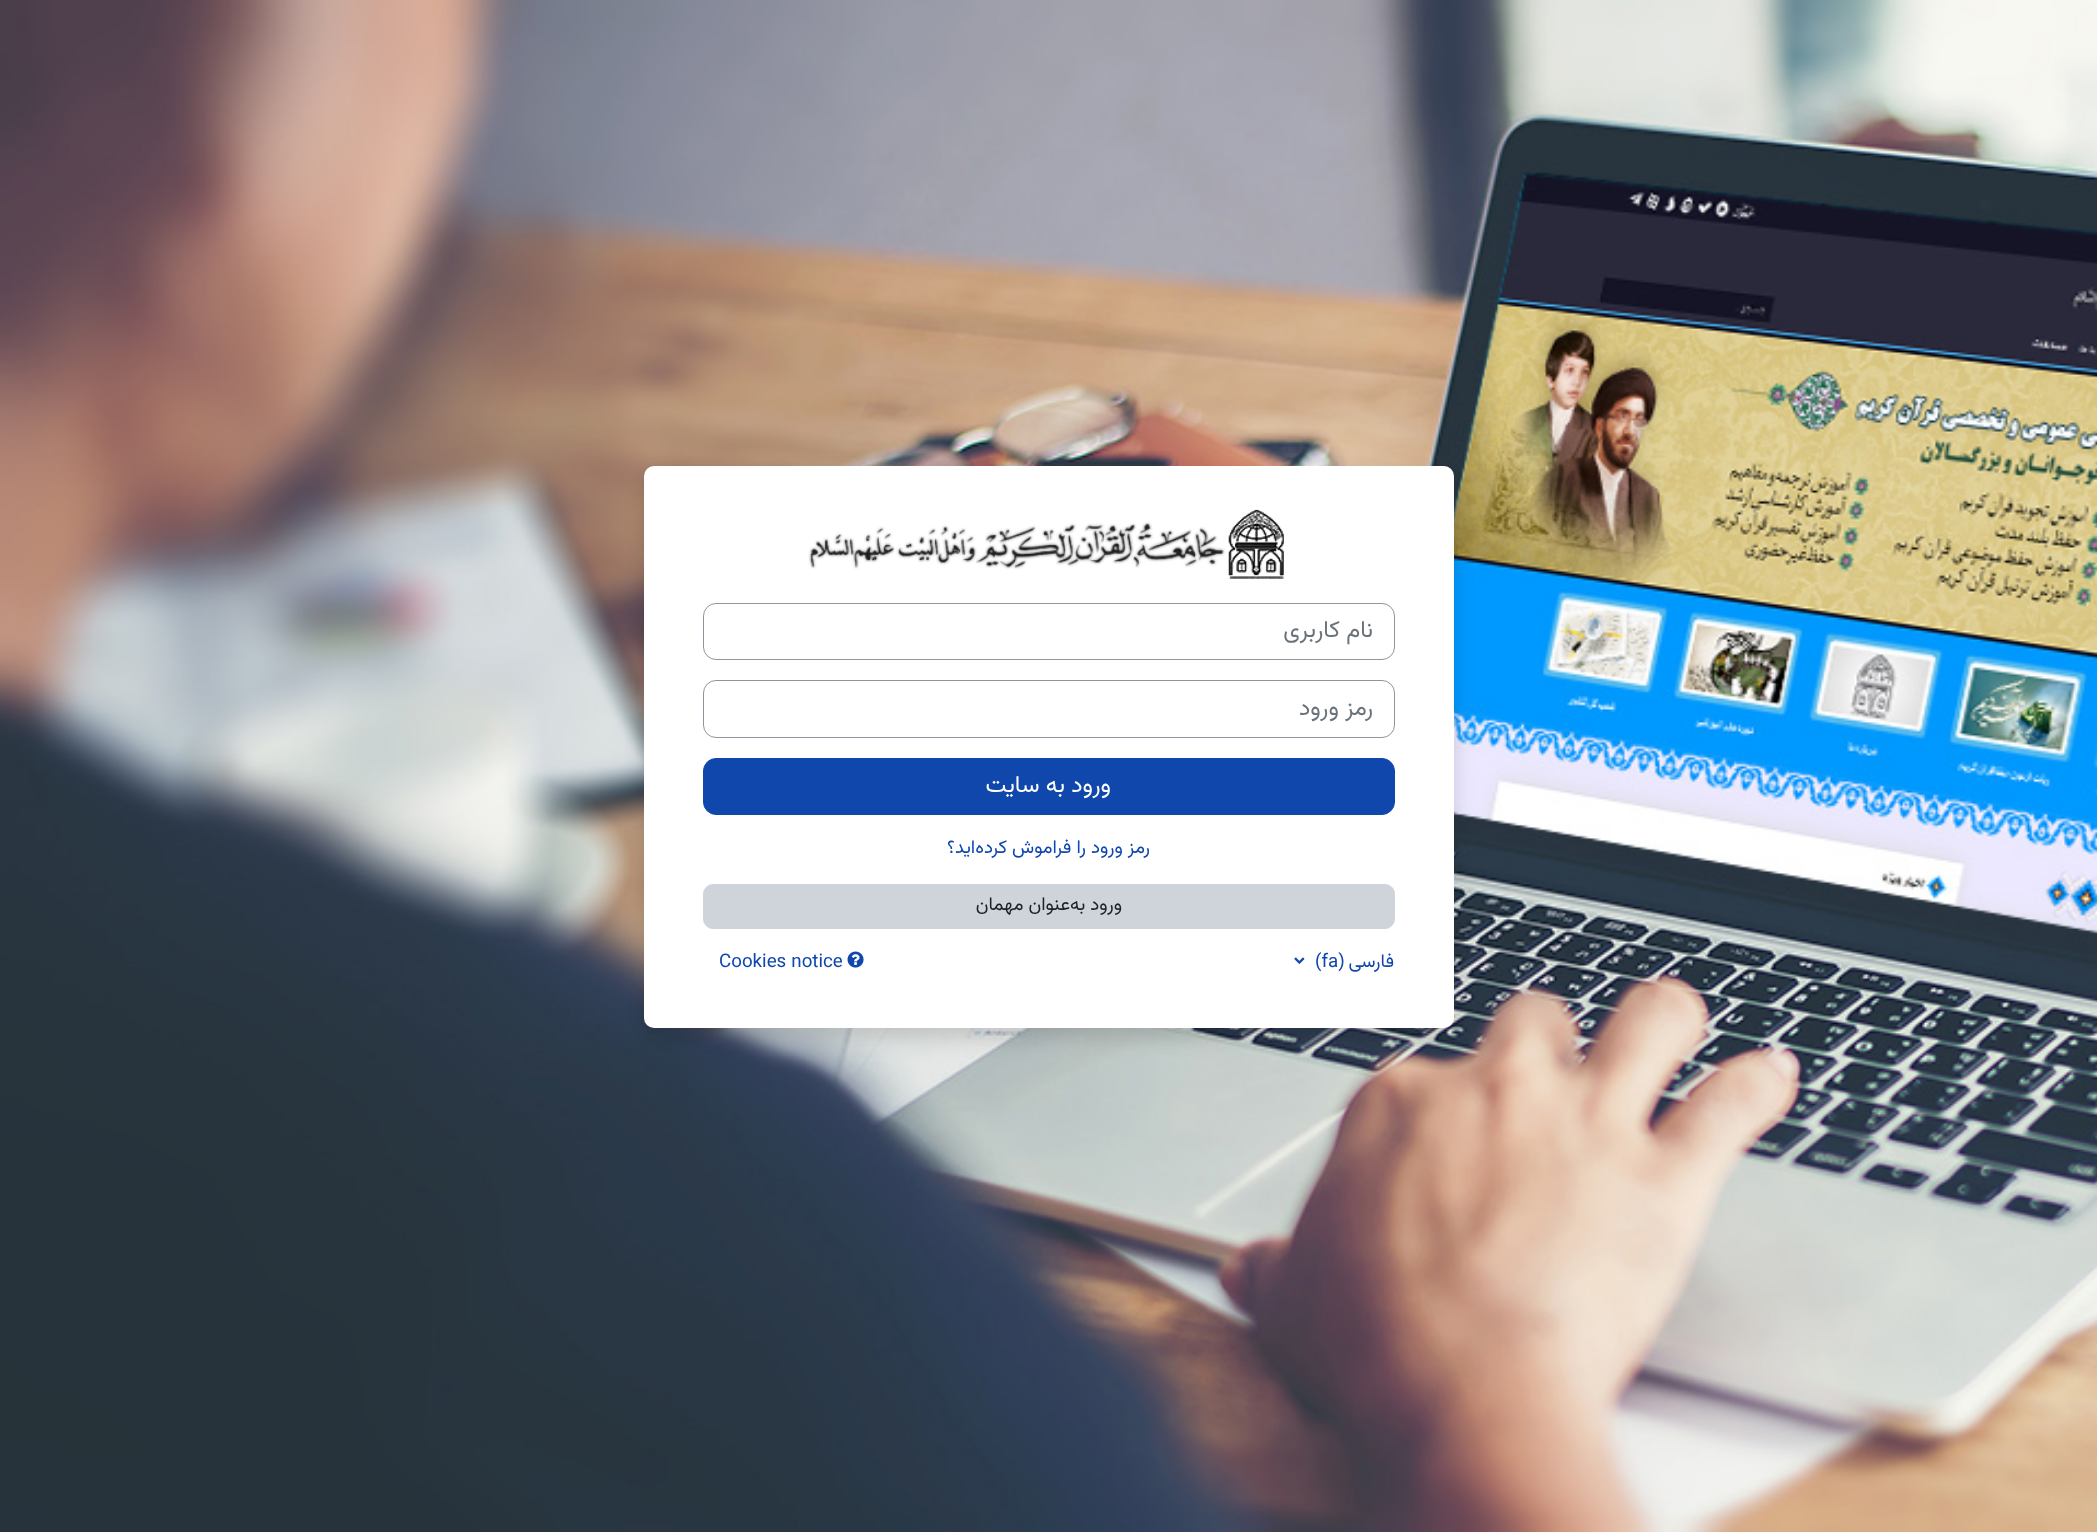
<?xml version="1.0" encoding="UTF-8"?>
<svg xmlns="http://www.w3.org/2000/svg" width="2097" height="1532">
    <defs>
        <filter id="blur1" x="-50%" y="-200%" width="200%" height="500%"><feGaussianBlur stdDeviation="10"/></filter>
    </defs>
    <rect width="100%" height="100%" fill="#FFFFFF"/>
    <image x="0" y="0" width="2097" height="1532" href="img_01.png"/>
    <rect x="644" y="476" width="810" height="562" rx="10" fill="#000000" fill-opacity="0.15" filter="url(#blur1)"/>
    <rect x="644" y="466" width="810" height="562" rx="10" fill="#FFFFFF"/>
    <image x="808" y="509" width="476" height="70" href="img_02.png"/>
    <rect x="703.5" y="603.5" width="691" height="56" rx="12.5" fill="none" stroke="#8F959E"/>
    <text x="1373" y="637" font-family="Vazirmatn" font-size="23.5" direction="rtl" fill="#6A737B">نام کاربری</text>
    <rect x="703.5" y="680.5" width="691" height="57" rx="12.5" fill="none" stroke="#8F959E"/>
    <text x="1373" y="715" font-family="Vazirmatn" font-size="23.5" direction="rtl" fill="#6A737B">رمز ورود</text>
    <rect x="703.5" y="758.5" width="691" height="56" rx="12.5" fill="#0F47AD" stroke="#0F47AD"/>
    <text x="1111" y="792" font-family="Vazirmatn" font-size="23.5" direction="rtl" fill="#FFFFFF">ورود به سایت</text>
    <text x="1150" y="853" font-family="Vazirmatn" font-size="18.75" direction="rtl" fill="#0F47AD">رمز ورود را فراموش کرده‌اید؟</text>
    <rect x="703.5" y="884.5" width="691" height="44" rx="9.5" fill="#CED4DA" stroke="#CED4DA"/>
    <text x="1122" y="910" font-family="Vazirmatn" font-size="18.75" direction="rtl" fill="#1D2125">ورود به‌عنوان مهمان</text>
    <text x="1394" y="967" font-family="Vazirmatn" font-size="18.75" direction="rtl" fill="#0F47AD">فارسی</text>
    <text x="1315" y="967" font-family="Vazirmatn" font-size="18.75" fill="#0F47AD">(fa)</text>
    <image x="1294" y="957" width="11" height="7" href="img_03.png"/>
    <image x="847" y="951" width="17" height="17" href="img_04.png"/>
    <text x="719" y="967" font-family="Vazirmatn" font-size="18.75" fill="#0F47AD">Cookies notice</text>
</svg>
